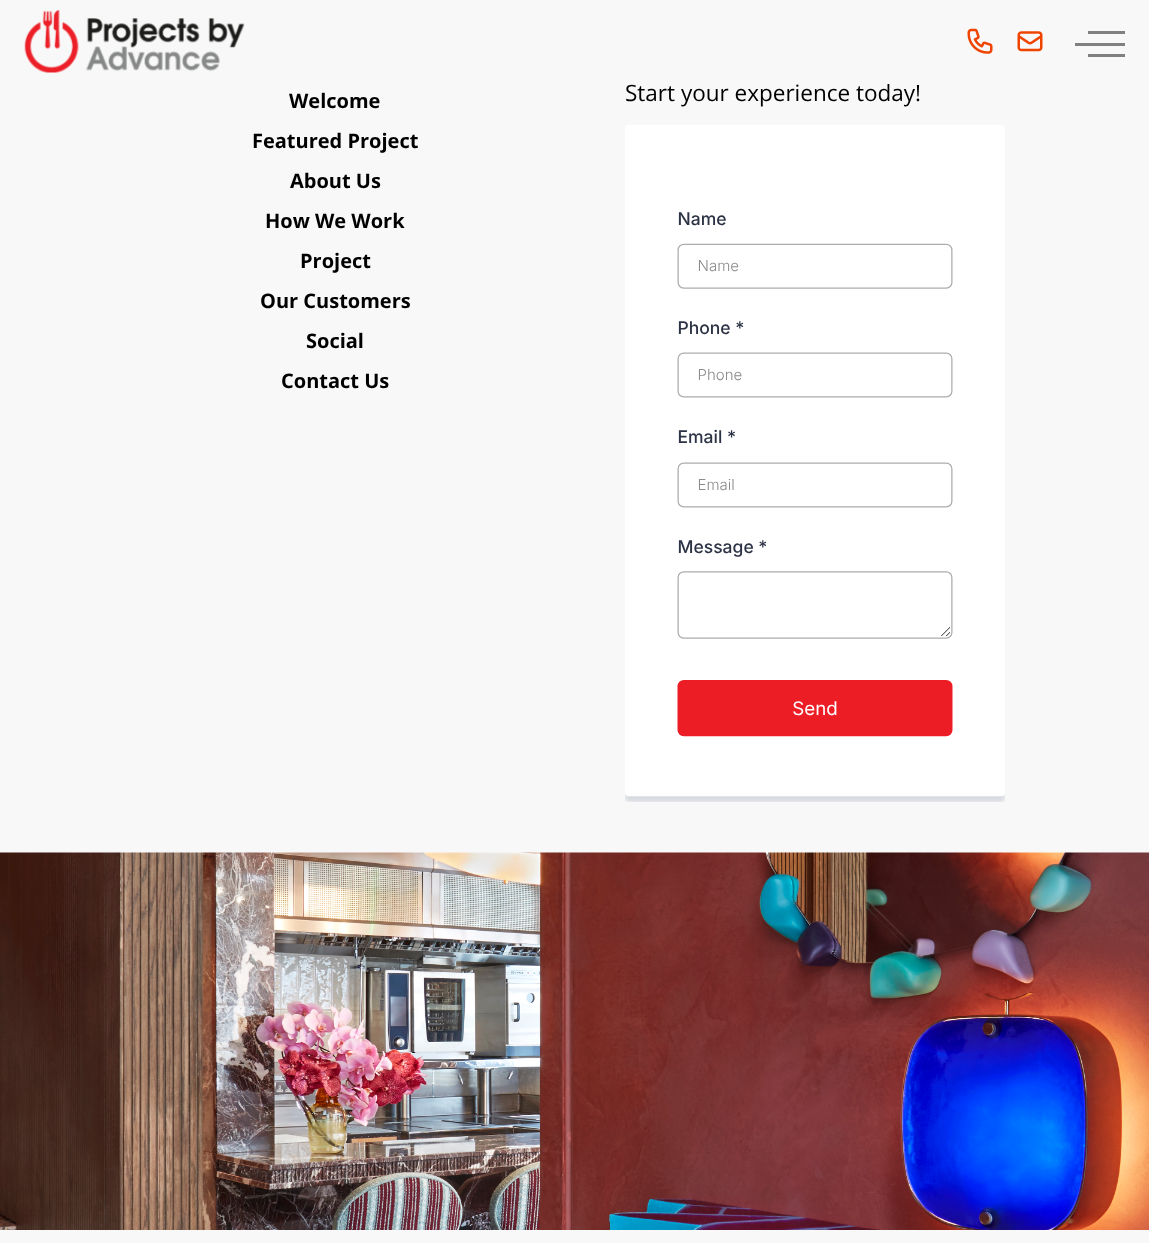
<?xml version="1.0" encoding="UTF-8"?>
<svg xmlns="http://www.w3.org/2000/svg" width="1149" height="1243">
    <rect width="100%" height="100%" fill="#F8F8F8"/>
    <image x="24" y="10" width="221" height="63" href="img_01.png"/>
    <image x="967" y="28" width="26" height="26" href="img_02.png"/>
    <image x="1017" y="31" width="26" height="21" href="img_03.png"/>
    <rect x="1088" y="31" width="37" height="3" fill="#808080"/>
    <rect x="1075" y="43" width="50" height="3" fill="#808080"/>
    <rect x="1088" y="54" width="37" height="3" fill="#808080"/>
    <text x="289" y="108" font-family="Open Sans" font-size="20" font-weight="700" fill="#000000">Welcome</text>
    <text x="252" y="148" font-family="Open Sans" font-size="20" font-weight="700" fill="#000000">Featured Project</text>
    <text x="290" y="188" font-family="Open Sans" font-size="20" font-weight="700" fill="#000000">About Us</text>
    <text x="265" y="228" font-family="Open Sans" font-size="20" font-weight="700" fill="#000000">How We Work</text>
    <text x="300" y="268" font-family="Open Sans" font-size="20" font-weight="700" fill="#000000">Project</text>
    <text x="260" y="308" font-family="Open Sans" font-size="20" font-weight="700" fill="#000000">Our Customers</text>
    <text x="306" y="348" font-family="Open Sans" font-size="20" font-weight="700" fill="#000000">Social</text>
    <text x="281" y="388" font-family="Open Sans" font-size="20" font-weight="700" fill="#000000">Contact Us</text>
    <text x="625" y="101" font-family="Open Sans" font-size="22.5" fill="#000000">Start your experience today!</text>
    <image x="625" y="125" width="380" height="677" href="img_04.png"/>
    <image x="0" y="852" width="1149" height="378" href="img_05.png"/>
</svg>
